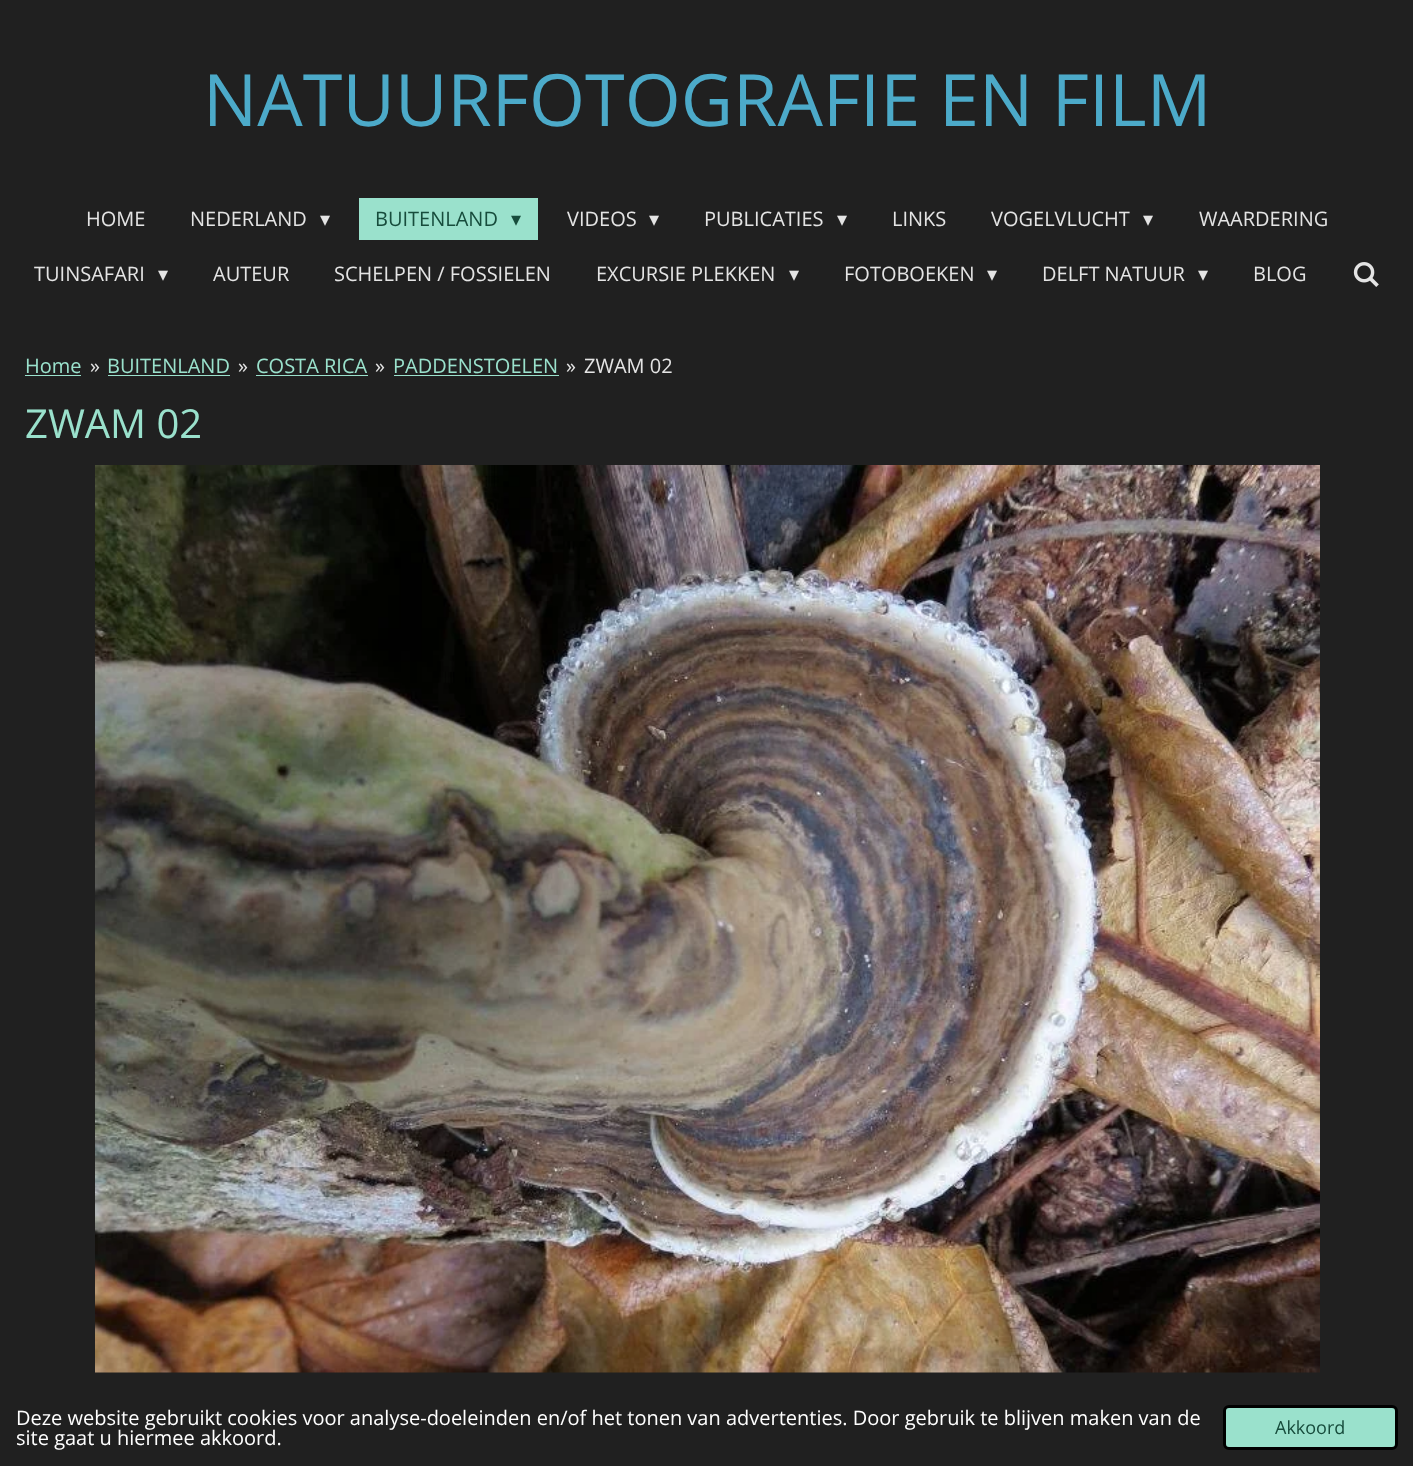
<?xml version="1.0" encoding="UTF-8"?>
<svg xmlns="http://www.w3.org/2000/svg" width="1413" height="1466">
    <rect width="100%" height="100%" fill="#202020"/>
    <text x="203" y="126" font-family="Open Sans" font-size="72" fill="#4CAAC9">NATUURFOTOGRAFIE EN FILM</text>
    <text x="86" y="226" font-family="Open Sans" font-size="20" fill="#E4E4E4">HOME</text>
    <text x="190" y="226" font-family="Open Sans" font-size="20" fill="#E4E4E4">NEDERLAND</text>
    <text x="320" y="226" font-family="DejaVu Sans" font-size="20" fill="#E4E4E4">▾</text>
    <rect x="359" y="198" width="179" height="42" fill="#9AE1CC"/>
    <text x="375" y="226" font-family="Open Sans" font-size="20" fill="#174C3C">BUITENLAND</text>
    <text x="511" y="226" font-family="DejaVu Sans" font-size="20" fill="#174C3C">▾</text>
    <text x="567" y="226" font-family="Open Sans" font-size="20" fill="#E4E4E4">VIDEOS</text>
    <text x="649" y="226" font-family="DejaVu Sans" font-size="20" fill="#E4E4E4">▾</text>
    <text x="704" y="226" font-family="Open Sans" font-size="20" fill="#E4E4E4">PUBLICATIES</text>
    <text x="837" y="226" font-family="DejaVu Sans" font-size="20" fill="#E4E4E4">▾</text>
    <text x="892" y="226" font-family="Open Sans" font-size="20" fill="#E4E4E4">LINKS</text>
    <text x="991" y="226" font-family="Open Sans" font-size="20" fill="#E4E4E4">VOGELVLUCHT</text>
    <text x="1143" y="226" font-family="DejaVu Sans" font-size="20" fill="#E4E4E4">▾</text>
    <text x="1199" y="226" font-family="Open Sans" font-size="20" fill="#E4E4E4">WAARDERING</text>
    <text x="34" y="281" font-family="Open Sans" font-size="20" fill="#E4E4E4">TUINSAFARI</text>
    <text x="158" y="281" font-family="DejaVu Sans" font-size="20" fill="#E4E4E4">▾</text>
    <text x="213" y="281" font-family="Open Sans" font-size="20" fill="#E4E4E4">AUTEUR</text>
    <text x="334" y="281" font-family="Open Sans" font-size="20" fill="#E4E4E4">SCHELPEN / FOSSIELEN</text>
    <text x="596" y="281" font-family="Open Sans" font-size="20" fill="#E4E4E4">EXCURSIE PLEKKEN</text>
    <text x="789" y="281" font-family="DejaVu Sans" font-size="20" fill="#E4E4E4">▾</text>
    <text x="844" y="281" font-family="Open Sans" font-size="20" fill="#E4E4E4">FOTOBOEKEN</text>
    <text x="987" y="281" font-family="DejaVu Sans" font-size="20" fill="#E4E4E4">▾</text>
    <text x="1042" y="281" font-family="Open Sans" font-size="20" fill="#E4E4E4">DELFT NATUUR</text>
    <text x="1198" y="281" font-family="DejaVu Sans" font-size="20" fill="#E4E4E4">▾</text>
    <text x="1253" y="281" font-family="Open Sans" font-size="20" fill="#E4E4E4">BLOG</text>
    <image x="1353" y="262" width="26" height="25" href="img_01.png"/>
    <text x="25" y="373" font-family="Open Sans" font-size="20" fill="#9AE1CC">Home</text>
    <rect x="25" y="375" width="56" height="1" fill="#9AE1CC"/>
    <text x="90" y="373" font-family="Open Sans" font-size="20" fill="#E4E4E4">»</text>
    <text x="107" y="373" font-family="Open Sans" font-size="20" fill="#9AE1CC">BUITENLAND</text>
    <rect x="108" y="375" width="122" height="1" fill="#9AE1CC"/>
    <text x="238" y="373" font-family="Open Sans" font-size="20" fill="#E4E4E4">»</text>
    <text x="256" y="373" font-family="Open Sans" font-size="20" fill="#9AE1CC">COSTA RICA</text>
    <rect x="256" y="375" width="112" height="1" fill="#9AE1CC"/>
    <text x="375" y="373" font-family="Open Sans" font-size="20" fill="#E4E4E4">»</text>
    <text x="393" y="373" font-family="Open Sans" font-size="20" fill="#9AE1CC">PADDENSTOELEN</text>
    <rect x="394" y="375" width="165" height="1" fill="#9AE1CC"/>
    <text x="566" y="373" font-family="Open Sans" font-size="20" fill="#E4E4E4">»</text>
    <text x="584" y="373" font-family="Open Sans" font-size="20" fill="#E4E4E4">ZWAM 02</text>
    <text x="25" y="438" font-family="Open Sans" font-size="40" fill="#9AE1CC">ZWAM 02</text>
    <image x="95" y="465" width="1225" height="908" href="img_02.png"/>
    <text font-family="Open Sans" font-size="20" fill="#FFFFFF">
        <tspan x="16" y="1425">Deze website gebruikt cookies voor analyse-doeleinden en/of het tonen van advertenties. Door gebruik te blijven maken van de</tspan>
        <tspan x="16" y="1445">site gaat u hiermee akkoord.</tspan>
    </text>
    <rect x="1224.5" y="1406.5" width="172" height="42" rx="4.5" fill="#9AE1CC" stroke="#000000" stroke-width="3"/>
    <text x="1275" y="1434" font-family="Open Sans" font-size="18" fill="#174C3C">Akkoord</text>
</svg>
